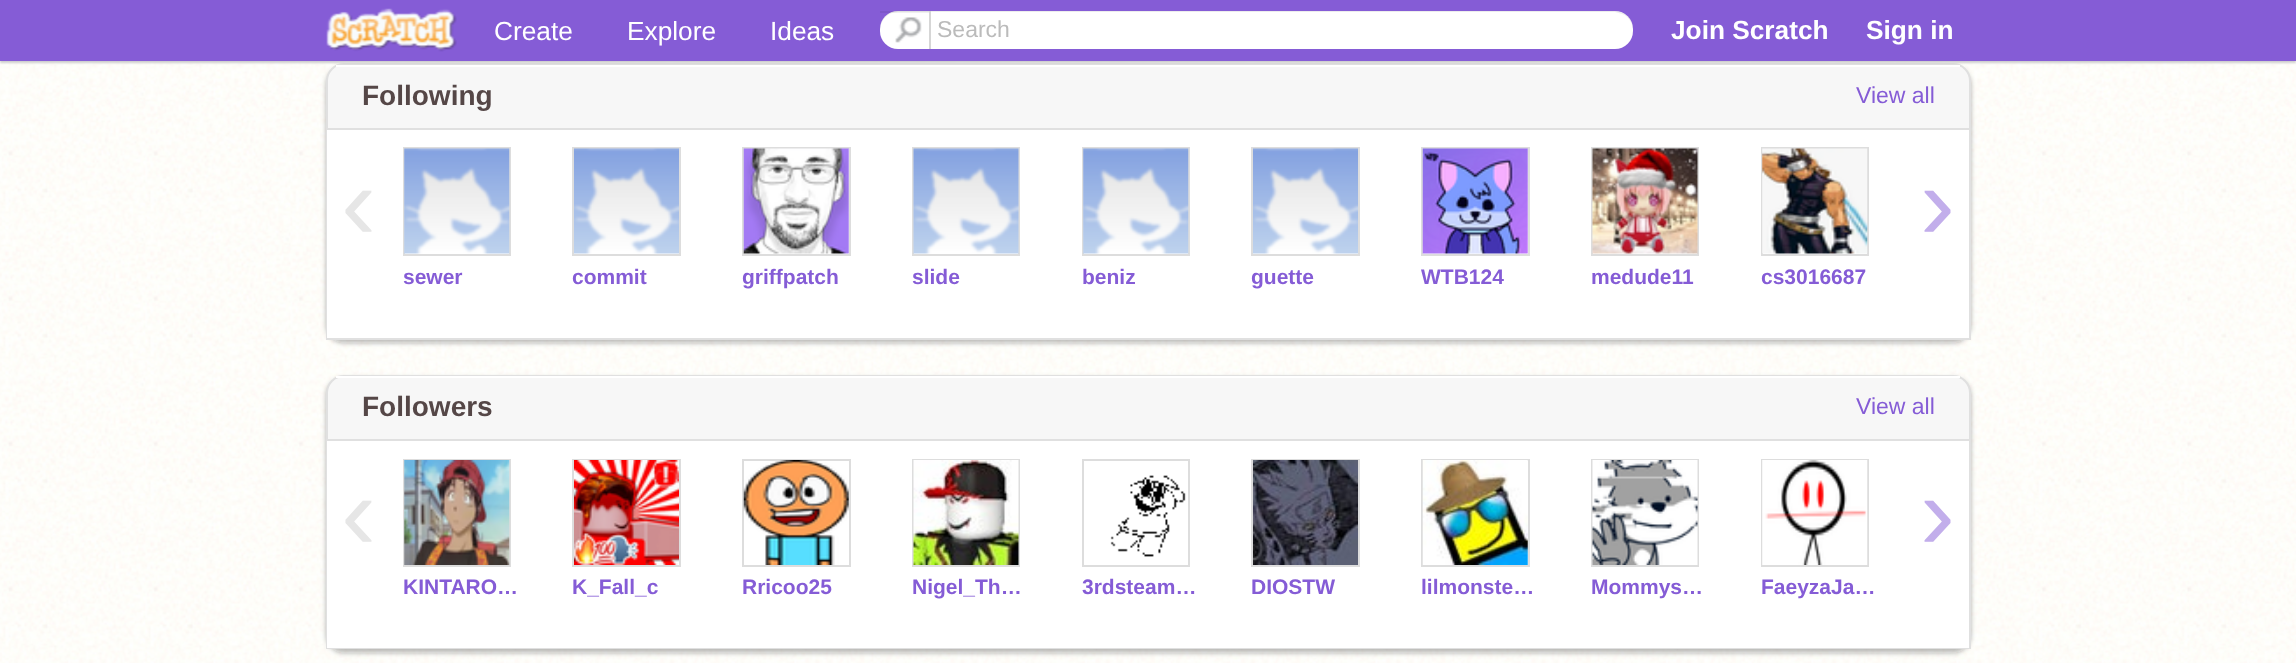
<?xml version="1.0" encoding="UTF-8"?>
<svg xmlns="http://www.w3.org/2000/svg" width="2296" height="663">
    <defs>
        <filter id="blur1" x="-50%" y="-200%" width="200%" height="500%"><feGaussianBlur stdDeviation="2.5"/></filter>
        <filter id="blur2" x="-50%" y="-200%" width="200%" height="500%"><feGaussianBlur stdDeviation="1"/></filter>
    </defs>
    <rect width="100%" height="100%" fill="#FFFFFF"/>
    <image x="0" y="61" width="2296" height="602" href="img_01.png"/>
    <rect x="326" y="67" width="1645" height="276" rx="18" fill="#221919" fill-opacity="0.3" filter="url(#blur1)"/>
    <path d="M 344 64 H 1953 C 1962.5 64 1970 71.5 1970 81 V 339 H 327 V 81 C 327 71.5 334.5 64 344 64 Z" fill="#F7F7F7" stroke="#E0E0E0" stroke-width="2"/>
    <rect x="336" y="65" width="1624" height="2" fill="#FFFFFF"/>
    <rect x="0" y="2" width="2296" height="61" fill="#CCCCCC" filter="url(#blur2)"/>
    <rect x="0" y="0" width="2296" height="61" fill="#855CD6"/>
    <image x="326" y="8" width="131" height="44" href="img_02.png"/>
    <text x="494" y="40" font-family="Liberation Sans" font-size="26.25" fill="#FFFFFF">Create</text>
    <text x="627" y="40" font-family="Liberation Sans" font-size="26.25" fill="#FFFFFF">Explore</text>
    <text x="770" y="40" font-family="Liberation Sans" font-size="26.25" fill="#FFFFFF">Ideas</text>
    <rect x="880" y="11" width="753" height="38" rx="18" fill="#FFFFFF"/>
    <path d="M 898 12 H 1615 L 1622 14 C 1629 16 1633 24 1633 31 V 29 C 1633 19 1625 11 1615 11 H 898 C 888 11 880 19 880 29 V 31 C 880 22 886 12 898 12 Z" fill="#000000" fill-opacity="0.07"/>
    <image x="895" y="17" width="27" height="26" href="img_03.png"/>
    <rect x="880" y="11" width="49" height="2" fill="#000000" fill-opacity="0.06"/>
    <rect x="929" y="11" width="2" height="38" fill="#CCCCCC" fill-opacity="0.8"/>
    <text x="937" y="37" font-family="Liberation Sans" font-size="23" fill="#BBBBBB">Search</text>
    <text x="1671" y="39" font-family="Liberation Sans" font-size="26.25" font-weight="700" fill="#FFFFFF">Join Scratch</text>
    <text x="1866" y="39" font-family="Liberation Sans" font-size="26.25" font-weight="700" fill="#FFFFFF">Sign in</text>
    <text x="362" y="105" font-family="Liberation Sans" font-size="28" font-weight="700" fill="#554747">Following</text>
    <text x="1856" y="103" font-family="Liberation Sans" font-size="23" fill="#855CD6">View all</text>
    <rect x="327" y="130" width="1642" height="208" fill="#FFFFFF"/>
    <rect x="327" y="128" width="1642" height="2" fill="#E0E0E0"/>
    <text x="341" y="239" font-family="Liberation Sans" font-size="105" fill="#E6E6E6">‹</text>
    <text x="1920" y="239" font-family="Liberation Sans" font-size="105" fill="#C2AEEB">›</text>
    <rect x="404" y="148" width="106" height="107" fill="none" stroke="#DDDDDD" stroke-width="2"/>
    <image x="404" y="148" width="106" height="106" href="img_04.png"/>
    <text x="403" y="284" font-family="Liberation Sans" font-size="21" font-weight="700" fill="#855CD6">sewer</text>
    <rect x="573" y="148" width="107" height="107" fill="none" stroke="#DDDDDD" stroke-width="2"/>
    <image x="574" y="148" width="105" height="106" href="img_05.png"/>
    <text x="572" y="284" font-family="Liberation Sans" font-size="21" font-weight="700" fill="#855CD6">commit</text>
    <rect x="743" y="148" width="107" height="107" fill="none" stroke="#DDDDDD" stroke-width="2"/>
    <image x="743" y="148" width="106" height="106" href="img_06.png"/>
    <text x="742" y="284" font-family="Liberation Sans" font-size="21" font-weight="700" fill="#855CD6">griffpatch</text>
    <rect x="913" y="148" width="106" height="107" fill="none" stroke="#DDDDDD" stroke-width="2"/>
    <image x="913" y="148" width="106" height="106" href="img_07.png"/>
    <text x="912" y="284" font-family="Liberation Sans" font-size="21" font-weight="700" fill="#855CD6">slide</text>
    <rect x="1083" y="148" width="106" height="107" fill="none" stroke="#DDDDDD" stroke-width="2"/>
    <image x="1083" y="148" width="106" height="106" href="img_08.png"/>
    <text x="1082" y="284" font-family="Liberation Sans" font-size="21" font-weight="700" fill="#855CD6">beniz</text>
    <rect x="1252" y="148" width="107" height="107" fill="none" stroke="#DDDDDD" stroke-width="2"/>
    <image x="1253" y="148" width="105" height="106" href="img_09.png"/>
    <text x="1251" y="284" font-family="Liberation Sans" font-size="21" font-weight="700" fill="#855CD6">guette</text>
    <rect x="1422" y="148" width="107" height="107" fill="none" stroke="#DDDDDD" stroke-width="2"/>
    <image x="1422" y="148" width="106" height="106" href="img_10.png"/>
    <text x="1421" y="284" font-family="Liberation Sans" font-size="21" font-weight="700" fill="#855CD6">WTB124</text>
    <rect x="1592" y="148" width="106" height="107" fill="none" stroke="#DDDDDD" stroke-width="2"/>
    <image x="1592" y="148" width="106" height="106" href="img_11.png"/>
    <text x="1591" y="284" font-family="Liberation Sans" font-size="21" font-weight="700" fill="#855CD6">medude11</text>
    <rect x="1762" y="148" width="106" height="107" fill="none" stroke="#DDDDDD" stroke-width="2"/>
    <image x="1762" y="148" width="106" height="106" href="img_12.png"/>
    <text x="1761" y="284" font-family="Liberation Sans" font-size="21" font-weight="700" fill="#855CD6">cs3016687</text>
    <rect x="326" y="378" width="1645" height="275" rx="18" fill="#221919" fill-opacity="0.3" filter="url(#blur1)"/>
    <path d="M 344 376 H 1953 C 1962.5 376 1970 383.5 1970 393 V 648 H 327 V 393 C 327 383.5 334.5 376 344 376 Z" fill="#F7F7F7" stroke="#E0E0E0" stroke-width="2"/>
    <rect x="336" y="376" width="1624" height="2" fill="#FFFFFF"/>
    <text x="362" y="416" font-family="Liberation Sans" font-size="28" font-weight="700" fill="#554747">Followers</text>
    <text x="1856" y="414" font-family="Liberation Sans" font-size="23" fill="#855CD6">View all</text>
    <rect x="327" y="441" width="1642" height="207" fill="#FFFFFF"/>
    <rect x="327" y="439" width="1642" height="2" fill="#E0E0E0"/>
    <text x="341" y="549" font-family="Liberation Sans" font-size="105" fill="#E6E6E6">‹</text>
    <text x="1920" y="549" font-family="Liberation Sans" font-size="105" fill="#C2AEEB">›</text>
    <rect x="404" y="460" width="106" height="106" fill="none" stroke="#DDDDDD" stroke-width="2"/>
    <image x="404" y="460" width="106" height="105" href="img_13.png"/>
    <text x="403" y="594" font-family="Liberation Sans" font-size="21" font-weight="700" fill="#855CD6">KINTARO…</text>
    <rect x="573" y="460" width="107" height="106" fill="none" stroke="#DDDDDD" stroke-width="2"/>
    <image x="574" y="460" width="105" height="105" href="img_14.png"/>
    <text x="572" y="594" font-family="Liberation Sans" font-size="21" font-weight="700" fill="#855CD6">K_Fall_c</text>
    <rect x="743" y="460" width="107" height="106" fill="none" stroke="#DDDDDD" stroke-width="2"/>
    <image x="743" y="460" width="106" height="105" href="img_15.png"/>
    <text x="742" y="594" font-family="Liberation Sans" font-size="21" font-weight="700" fill="#855CD6">Rricoo25</text>
    <rect x="913" y="460" width="106" height="106" fill="none" stroke="#DDDDDD" stroke-width="2"/>
    <image x="913" y="460" width="106" height="105" href="img_16.png"/>
    <text x="912" y="594" font-family="Liberation Sans" font-size="21" font-weight="700" fill="#855CD6">Nigel_Th…</text>
    <rect x="1083" y="460" width="106" height="106" fill="none" stroke="#DDDDDD" stroke-width="2"/>
    <image x="1110" y="475" width="76" height="82" href="img_17.png"/>
    <text x="1082" y="594" font-family="Liberation Sans" font-size="21" font-weight="700" fill="#855CD6">3rdsteam…</text>
    <rect x="1252" y="460" width="107" height="106" fill="none" stroke="#DDDDDD" stroke-width="2"/>
    <image x="1253" y="460" width="105" height="105" href="img_18.png"/>
    <text x="1251" y="594" font-family="Liberation Sans" font-size="21" font-weight="700" fill="#855CD6">DIOSTW</text>
    <rect x="1422" y="460" width="107" height="106" fill="none" stroke="#DDDDDD" stroke-width="2"/>
    <image x="1422" y="460" width="106" height="105" href="img_19.png"/>
    <text x="1421" y="594" font-family="Liberation Sans" font-size="21" font-weight="700" fill="#855CD6">lilmonste…</text>
    <rect x="1592" y="460" width="106" height="106" fill="none" stroke="#DDDDDD" stroke-width="2"/>
    <image x="1592" y="460" width="106" height="105" href="img_20.png"/>
    <text x="1591" y="594" font-family="Liberation Sans" font-size="21" font-weight="700" fill="#855CD6">Mommys…</text>
    <rect x="1762" y="460" width="106" height="106" fill="none" stroke="#DDDDDD" stroke-width="2"/>
    <image x="1762" y="460" width="106" height="105" href="img_21.png"/>
    <text x="1761" y="594" font-family="Liberation Sans" font-size="21" font-weight="700" fill="#855CD6">FaeyzaJa…</text>
</svg>
